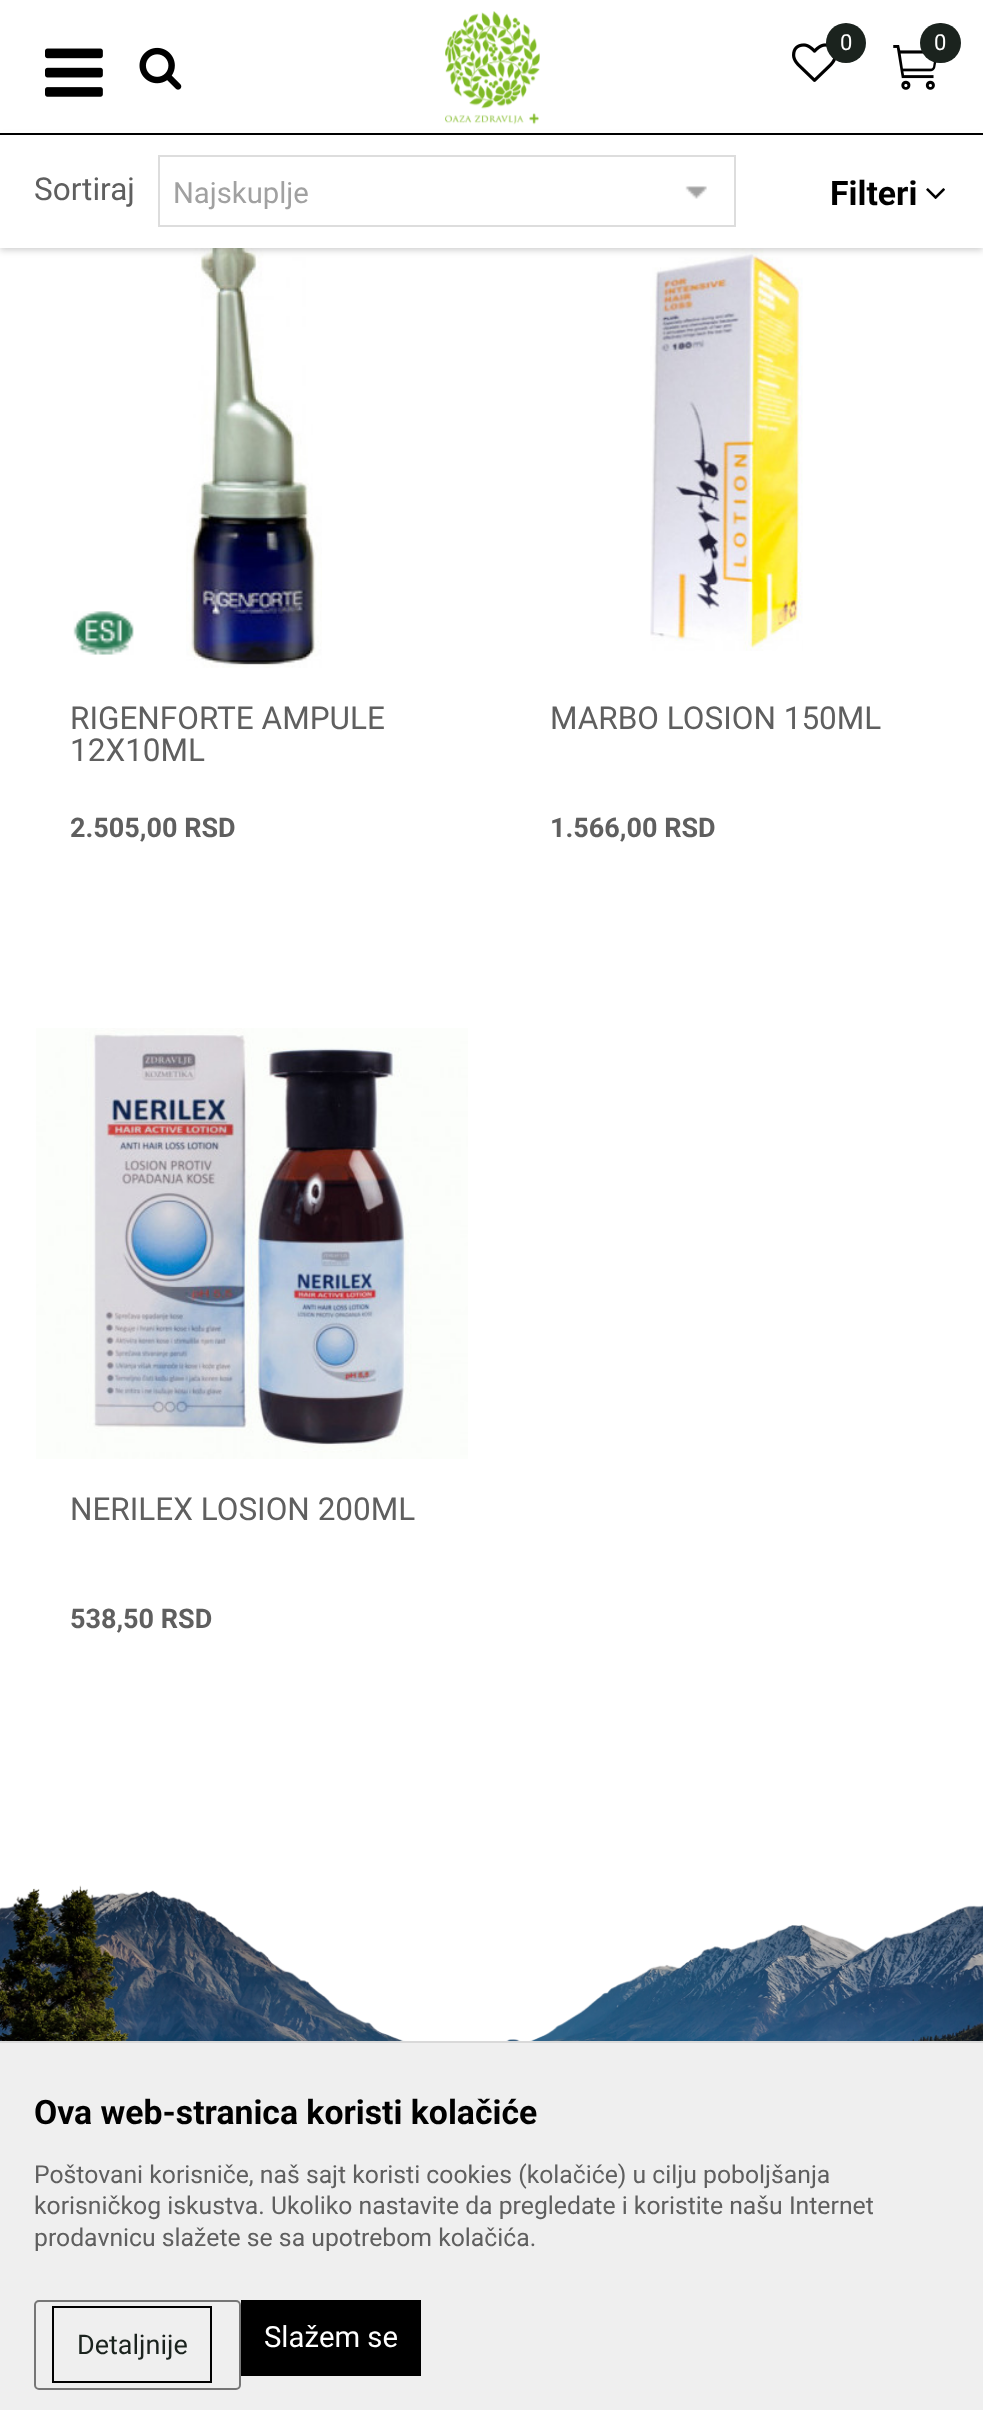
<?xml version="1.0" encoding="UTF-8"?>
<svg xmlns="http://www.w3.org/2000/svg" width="983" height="2410">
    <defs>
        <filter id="blur1" x="-50%" y="-200%" width="200%" height="500%"><feGaussianBlur stdDeviation="3.5"/></filter>
    </defs>
    <rect width="100%" height="100%" fill="#FFFFFF"/>
    <image x="186" y="248" width="136" height="420" href="img_09.png"/>
    <image x="650" y="248" width="153" height="403" href="img_10.png"/>
    <rect x="0" y="137" width="983" height="113" fill="#000000" fill-opacity="0.2" filter="url(#blur1)"/>
    <rect x="0" y="131" width="983" height="2" fill="#FFFFFF"/>
    <rect x="0" y="133" width="983" height="2" fill="#000000"/>
    <image x="445" y="11" width="95" height="114" href="img_01.png"/>
    <image x="792" y="43" width="44" height="39" href="img_02.png"/>
    <circle cx="846" cy="43" r="20" fill="#1B231E"/>
    <text x="840" y="50" font-family="Roboto" font-size="22" fill="#FFFFFF">0</text>
    <image x="893" y="45" width="44" height="45" href="img_03.png"/>
    <rect x="920" y="23" width="41" height="40" rx="20" fill="#1B231E"/>
    <text x="934" y="50" font-family="Roboto" font-size="22" fill="#FFFFFF">0</text>
    <image x="45" y="48" width="58" height="49" href="img_04.png"/>
    <image x="139" y="47" width="43" height="43" href="img_05.png"/>
    <rect x="0" y="135" width="983" height="113" fill="#FFFFFF"/>
    <text x="34" y="200" font-family="Roboto" font-size="31.5" fill="#5F5F5F">Sortiraj</text>
    <image x="685" y="186" width="22" height="13" href="img_06.png"/>
    <rect x="159" y="156" width="576" height="70" fill="none" stroke="#DDDDDD" stroke-width="2"/>
    <text x="173" y="203" font-family="Roboto" font-size="29.25" fill="#A1A1A1">Najskuplje</text>
    <text x="830" y="205" font-family="Roboto" font-size="33.75" font-weight="700" fill="#000000">Filteri</text>
    <image x="926" y="188" width="19" height="11" href="img_07.png"/>
    <image x="73" y="611" width="61" height="44" href="img_08.png"/>
    <text font-family="Roboto" font-size="31.5" fill="#5F5F5F">
        <tspan x="70" y="729">RIGENFORTE AMPULE</tspan>
        <tspan x="70" y="761">12X10ML</tspan>
    </text>
    <text x="70" y="837" font-family="Roboto" font-size="27" font-weight="700" fill="#5F5F5F">2.505,00 RSD</text>
    <text x="550" y="729" font-family="Roboto" font-size="31.5" fill="#5F5F5F">MARBO LOSION 150ML</text>
    <text x="550" y="837" font-family="Roboto" font-size="27" font-weight="700" fill="#5F5F5F">1.566,00 RSD</text>
    <image x="36" y="1028" width="432" height="431" href="img_11.png"/>
    <text x="70" y="1520" font-family="Roboto" font-size="31.5" fill="#5F5F5F">NERILEX LOSION 200ML</text>
    <text x="70" y="1628" font-family="Roboto" font-size="27" font-weight="700" fill="#5F5F5F">538,50 RSD</text>
    <image x="0" y="1885" width="983" height="156" href="img_12.png"/>
    <rect x="-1" y="2042" width="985" height="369" fill="none" stroke="#D9D9D9" stroke-width="2"/>
    <rect x="0" y="2043" width="983" height="367" fill="#EFEFEF"/>
    <text x="34" y="2124" font-family="Roboto" font-size="33.75" font-weight="700" fill="#000000">Ova web-stranica koristi kolačiće</text>
    <text font-family="Roboto" font-size="24.75" fill="#5F5F5F">
        <tspan x="34" y="2183">Poštovani korisniče, naš sajt koristi cookies (kolačiće) u cilju poboljšanja</tspan>
        <tspan x="34" y="2214">korisničkog iskustva. Ukoliko nastavite da pregledate i koristite našu Internet</tspan>
        <tspan x="34" y="2246">prodavnicu slažete se sa upotrebom kolačića.</tspan>
    </text>
    <rect x="35" y="2301" width="205" height="88" rx="4" fill="none" stroke="#767676" stroke-width="2"/>
    <rect x="53" y="2307" width="158" height="75" fill="none" stroke="#000000" stroke-width="2"/>
    <text x="77" y="2354" font-family="Roboto" font-size="27" fill="#1B231E">Detaljnije</text>
    <rect x="241" y="2300" width="180" height="76" fill="#000000"/>
    <text x="264" y="2347" font-family="Roboto" font-size="29.25" fill="#FFFFFF">Slažem se</text>
</svg>
